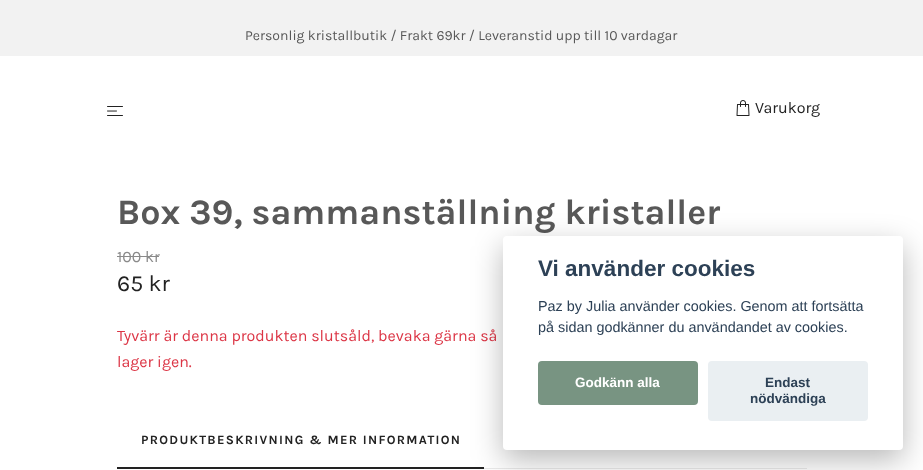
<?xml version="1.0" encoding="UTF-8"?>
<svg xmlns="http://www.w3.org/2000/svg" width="923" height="470">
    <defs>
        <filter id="blur1" x="-50%" y="-200%" width="200%" height="500%"><feGaussianBlur stdDeviation="15"/></filter>
    </defs>
    <rect width="100%" height="100%" fill="#FFFFFF"/>
    <rect x="0" y="0" width="923" height="56" fill="#F2F2F2"/>
    <text x="245" y="40" font-family="Karla" font-size="14" fill="#585858">Personlig kristallbutik / Frakt 69kr / Leveranstid upp till 10 vardagar</text>
    <image x="107" y="106" width="16" height="10" href="img_01.png"/>
    <image x="736" y="100" width="14" height="16" href="img_02.png"/>
    <text x="755" y="113" font-family="Karla" font-size="16" fill="#222222">Varukorg</text>
    <text x="117" y="224" font-family="Karla" font-size="35.8" font-weight="700" fill="#585858">Box 39, sammanställning kristaller</text>
    <text x="117" y="262" font-family="Karla" font-size="16" fill="#8A8A8A">100 kr</text>
    <rect x="117" y="256" width="42" height="1" fill="#8A8A8A"/>
    <text x="117" y="291" font-family="Karla" font-size="23" fill="#222222">65 kr</text>
    <text font-family="Karla" font-size="16" fill="#DC3545">
        <tspan x="117" y="341">Tyvärr är denna produkten slutsåld, bevaka gärna så</tspan>
        <tspan x="117" y="367">lager igen.</tspan>
    </text>
    <rect x="484" y="468" width="323" height="1" fill="#E9E9E9"/>
    <rect x="117" y="467" width="367" height="2" fill="#222222"/>
    <text x="141" y="444" font-family="Karla" font-size="12.8" font-weight="700" letter-spacing="1.3" fill="#222222">PRODUKTBESKRIVNING &amp; MER INFORMATION</text>
    <rect x="503" y="246" width="400" height="214" rx="4" fill="#020203" fill-opacity="0.28" filter="url(#blur1)"/>
    <rect x="503" y="236" width="400" height="214" rx="4" fill="#FFFFFF"/>
    <text x="538" y="276" font-family="Liberation Sans" font-size="22.5" font-weight="700" fill="#2D4156">Vi använder cookies</text>
    <text font-family="Liberation Sans" font-size="14.4" fill="#2D4156">
        <tspan x="538" y="311">Paz by Julia använder cookies. Genom att fortsätta</tspan>
        <tspan x="538" y="332">på sidan godkänner du användandet av cookies.</tspan>
    </text>
    <rect x="538" y="361" width="160" height="44" rx="4" fill="#789482"/>
    <text x="575" y="387" font-family="Liberation Sans" font-size="13.5" font-weight="700" fill="#FFFFFF">Godkänn alla</text>
    <rect x="708" y="361" width="160" height="60" rx="4" fill="#EAEFF2"/>
    <text x="765" y="387" font-family="Liberation Sans" font-size="13.5" font-weight="700" fill="#2D4156">Endast</text>
    <text x="750" y="403" font-family="Liberation Sans" font-size="13.5" font-weight="700" fill="#2D4156">nödvändiga</text>
</svg>
